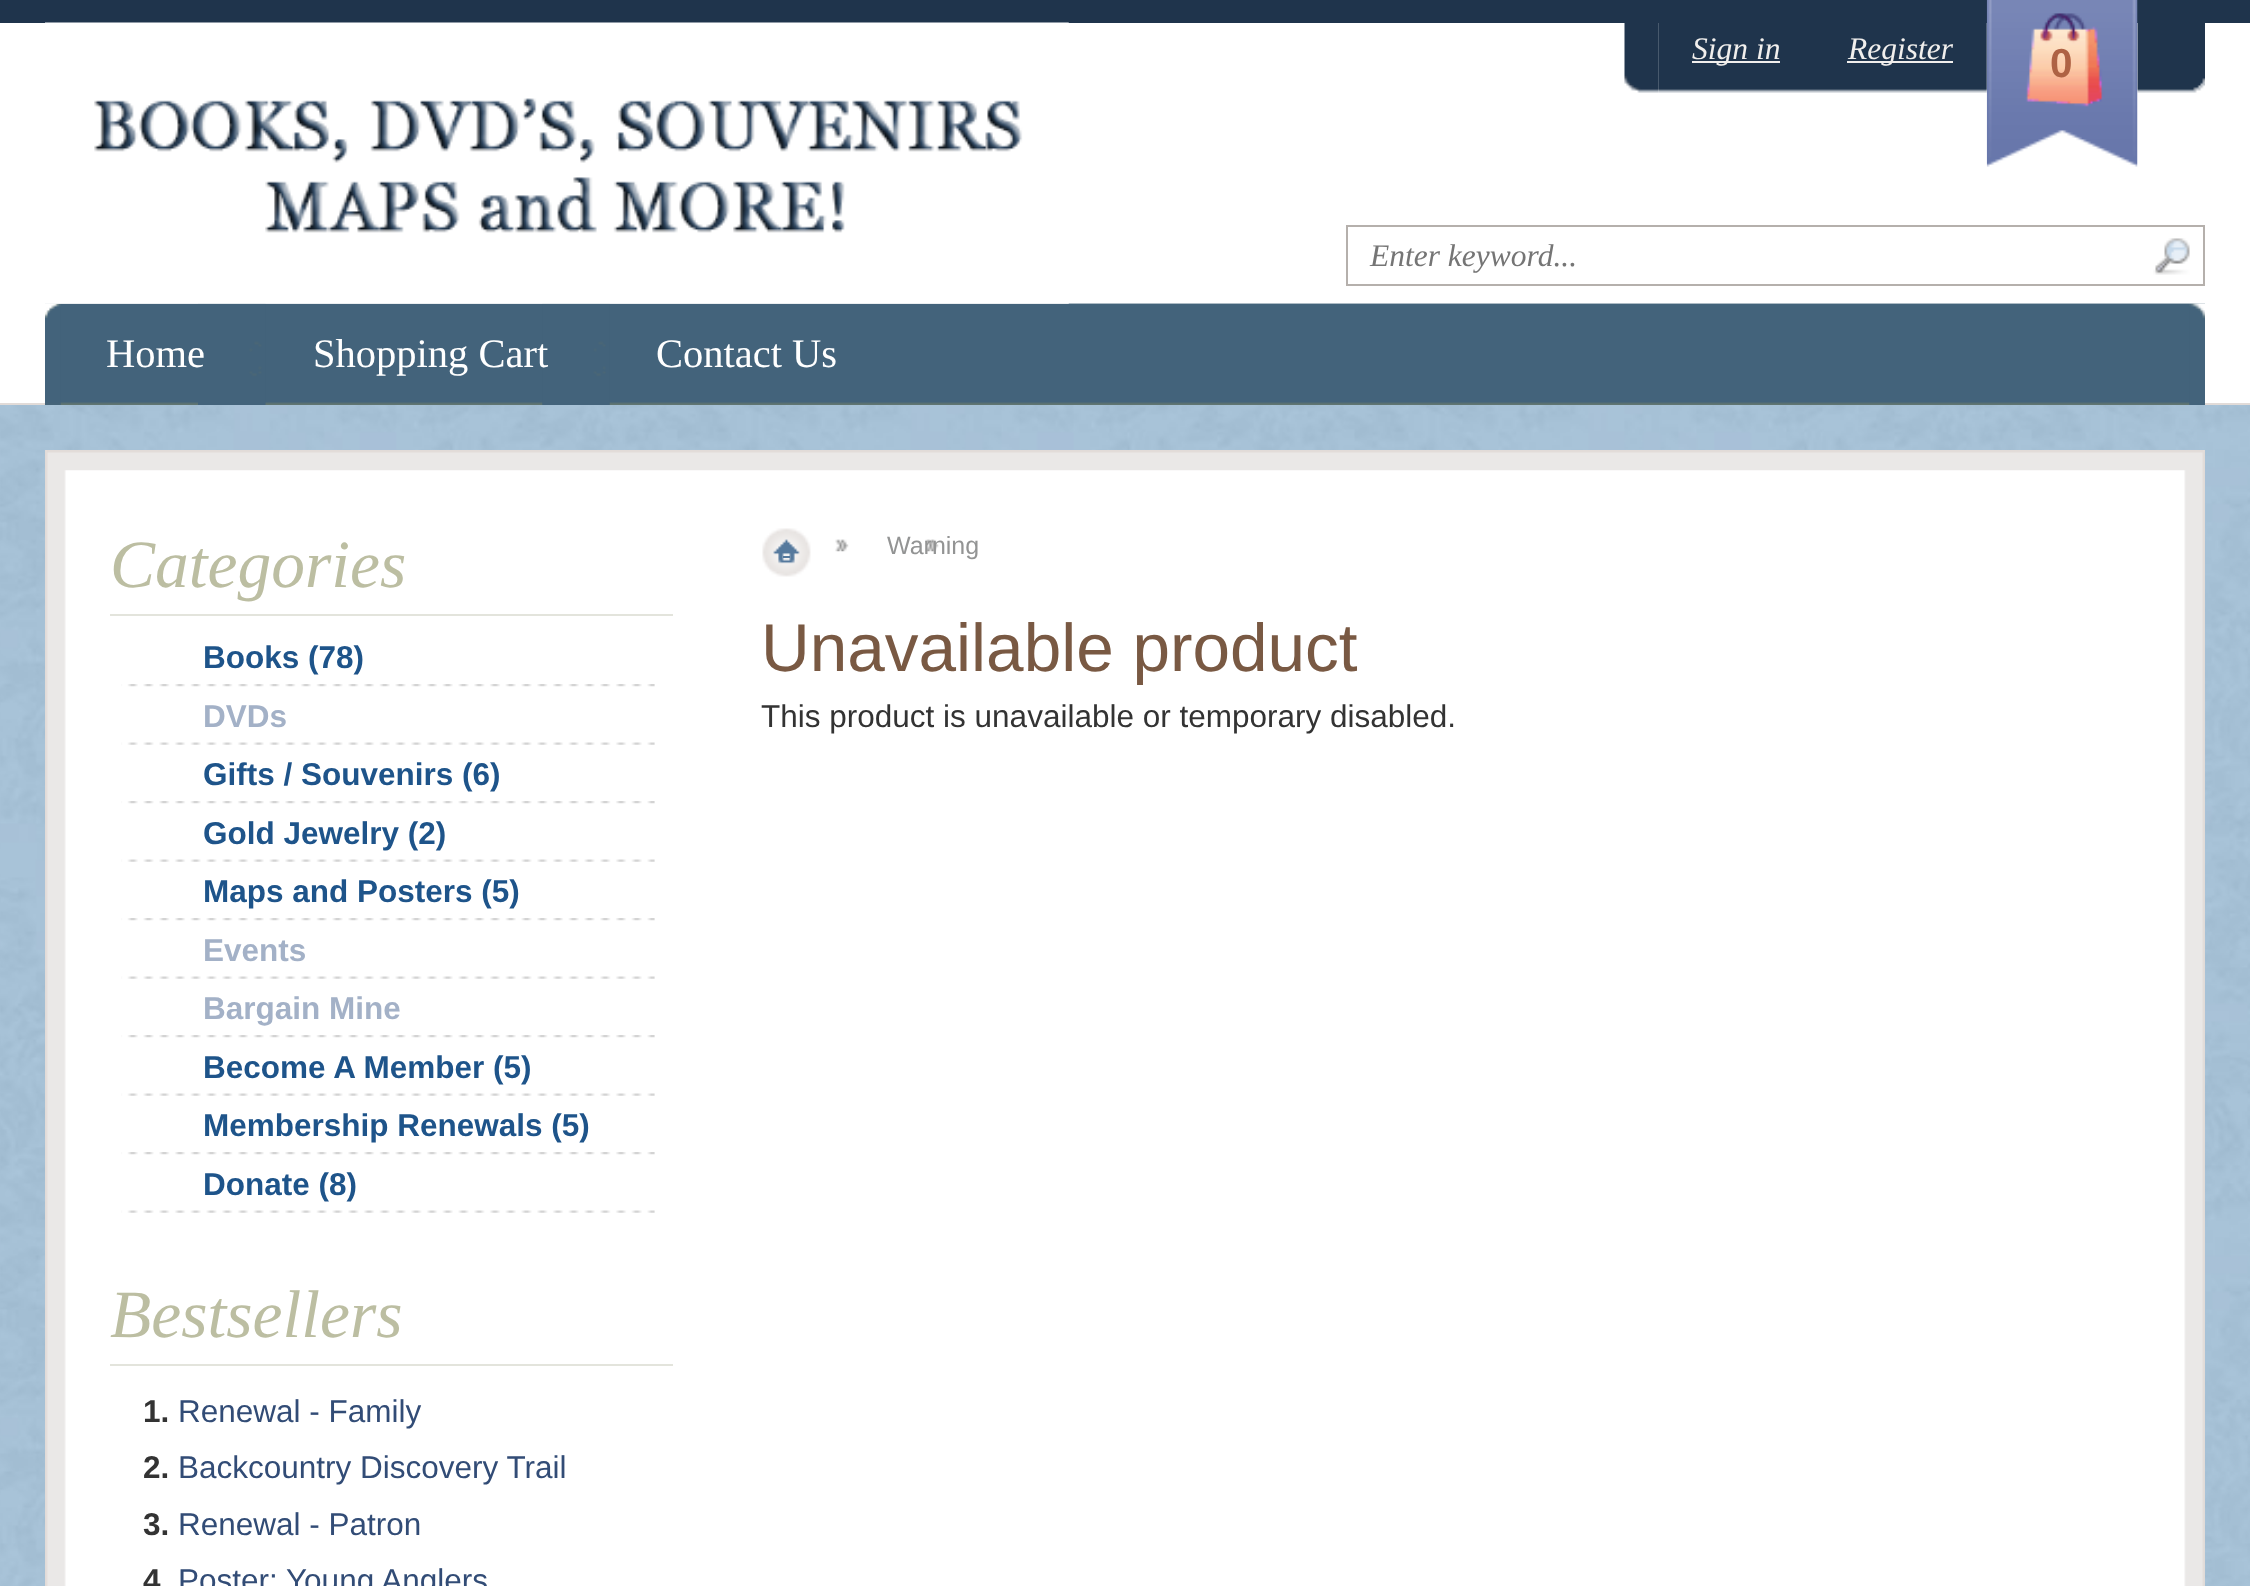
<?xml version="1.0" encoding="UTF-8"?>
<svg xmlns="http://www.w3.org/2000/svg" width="2250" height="1586">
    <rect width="100%" height="100%" fill="#FFFFFF"/>
    <image x="0" y="405" width="2250" height="1181" href="img_01.png"/>
    <rect x="0" y="0" width="2250" height="23" fill="#1F344C"/>
    <rect x="0" y="403" width="2250" height="2" fill="#E1DBD8"/>
    <image x="45" y="303" width="2160" height="102" href="img_08.png"/>
    <image x="60" y="303" width="2130" height="1" href="img_10.png"/>
    <image x="45" y="303" width="16" height="102" href="img_09.png"/>
    <image x="198" y="303" width="68" height="102" href="img_11.png"/>
    <image x="542" y="303" width="68" height="102" href="img_12.png"/>
    <image x="45" y="22" width="1024" height="282" href="img_02.png"/>
    <image x="1658" y="23" width="329" height="70" href="img_04.png"/>
    <image x="1624" y="23" width="35" height="70" href="img_03.png"/>
    <rect x="1692" y="61" width="88" height="2" fill="#F1EFED"/>
    <text x="1692" y="59" font-family="Liberation Serif" font-size="31.5" font-style="italic" fill="#F1EFED">Sign in</text>
    <rect x="1847" y="61" width="106" height="2" fill="#F1EFED"/>
    <text x="1848" y="59" font-family="Liberation Serif" font-size="31.5" font-style="italic" fill="#F1EFED">Register</text>
    <image x="2137" y="23" width="68" height="70" href="img_06.png"/>
    <image x="1986" y="0" width="152" height="167" href="img_05.png"/>
    <text x="2050" y="77" font-family="Liberation Sans" font-size="40.5" font-weight="700" fill="#AE6244">0</text>
    <rect x="1347" y="226" width="857" height="59" fill="none" stroke="#B5B0AC" stroke-width="2"/>
    <text x="1370" y="266" font-family="Liberation Serif" font-size="31.5" font-style="italic" fill="#757575">Enter keyword...</text>
    <image x="2153" y="238" width="37" height="37" href="img_07.png"/>
    <text x="106" y="367" font-family="Liberation Serif" font-size="40.5" fill="#FFFFFF">Home</text>
    <text x="313" y="367" font-family="Liberation Serif" font-size="40.5" fill="#FFFFFF">Shopping Cart</text>
    <text x="656" y="367" font-family="Liberation Serif" font-size="40.5" fill="#FFFFFF">Contact Us</text>
    <image x="2189" y="303" width="16" height="102" href="img_13.png"/>
    <image x="45" y="450" width="2160" height="1136" href="img_14.png"/>
    <image x="47" y="450" width="2156" height="21" href="img_15.png"/>
    <rect x="110" y="614" width="563" height="2" fill="#E3E4DC"/>
    <text x="110" y="587" font-family="Liberation Serif" font-size="67.5" font-style="italic" fill="#BCBEA2">Categories</text>
    <image x="121" y="684" width="534" height="3" href="img_16.png"/>
    <text x="203" y="668" font-family="Liberation Sans" font-size="31.5" font-weight="700" fill="#1E548A">Books (78)</text>
    <image x="121" y="742" width="534" height="3" href="img_17.png"/>
    <text x="203" y="727" font-family="Liberation Sans" font-size="31.5" font-weight="700" fill="#A3B1C7">DVDs</text>
    <image x="121" y="801" width="534" height="3" href="img_18.png"/>
    <text x="203" y="785" font-family="Liberation Sans" font-size="31.5" font-weight="700" fill="#1E548A">Gifts / Souvenirs (6)</text>
    <image x="121" y="859" width="534" height="3" href="img_19.png"/>
    <text x="203" y="844" font-family="Liberation Sans" font-size="31.5" font-weight="700" fill="#1E548A">Gold Jewelry (2)</text>
    <image x="121" y="918" width="534" height="3" href="img_20.png"/>
    <text x="203" y="902" font-family="Liberation Sans" font-size="31.5" font-weight="700" fill="#1E548A">Maps and Posters (5)</text>
    <image x="121" y="976" width="534" height="3" href="img_21.png"/>
    <text x="203" y="961" font-family="Liberation Sans" font-size="31.5" font-weight="700" fill="#A3B1C7">Events</text>
    <image x="121" y="1035" width="534" height="3" href="img_20.png"/>
    <text x="203" y="1019" font-family="Liberation Sans" font-size="31.5" font-weight="700" fill="#A3B1C7">Bargain Mine</text>
    <image x="121" y="1093" width="534" height="3" href="img_17.png"/>
    <text x="203" y="1078" font-family="Liberation Sans" font-size="31.5" font-weight="700" fill="#1E548A">Become A Member (5)</text>
    <image x="121" y="1152" width="534" height="3" href="img_22.png"/>
    <text x="203" y="1136" font-family="Liberation Sans" font-size="31.5" font-weight="700" fill="#1E548A">Membership Renewals (5)</text>
    <image x="121" y="1210" width="534" height="3" href="img_17.png"/>
    <text x="203" y="1195" font-family="Liberation Sans" font-size="31.5" font-weight="700" fill="#1E548A">Donate (8)</text>
    <rect x="110" y="1364" width="563" height="2" fill="#E3E4DC"/>
    <text x="110" y="1337" font-family="Liberation Serif" font-size="67.5" font-style="italic" fill="#BCBEA2">Bestsellers</text>
    <text x="143" y="1422" font-family="Liberation Sans" font-size="31.5" font-weight="700" fill="#333333">1.</text>
    <text x="178" y="1422" font-family="Liberation Sans" font-size="31.5" fill="#324C76">Renewal - Family</text>
    <text x="143" y="1478" font-family="Liberation Sans" font-size="31.5" font-weight="700" fill="#333333">2.</text>
    <text x="178" y="1478" font-family="Liberation Sans" font-size="31.5" fill="#324C76">Backcountry Discovery Trail</text>
    <text x="143" y="1535" font-family="Liberation Sans" font-size="31.5" font-weight="700" fill="#333333">3.</text>
    <text x="178" y="1535" font-family="Liberation Sans" font-size="31.5" fill="#324C76">Renewal - Patron</text>
    <text x="143" y="1591" font-family="Liberation Sans" font-size="31.5" font-weight="700" fill="#333333">4</text>
    <text x="178" y="1591" font-family="Liberation Sans" font-size="31.5" fill="#324C76">Poster: Young Anglers</text>
    <image x="762" y="528" width="49" height="49" href="img_23.png"/>
    <image x="835" y="539" width="14" height="13" href="img_24.png"/>
    <image x="925" y="539" width="14" height="13" href="img_25.png"/>
    <text x="887" y="554" font-family="Liberation Sans" font-size="25" fill="#939494">Warning</text>
    <rect x="783" y="556" width="7" height="2" fill="#55799D"/>
    <text x="761" y="671" font-family="Liberation Sans" font-size="67.5" fill="#795943">Unavailable product</text>
    <text x="761" y="727" font-family="Liberation Sans" font-size="31.5" fill="#333333">This product is unavailable or temporary disabled.</text>
</svg>
